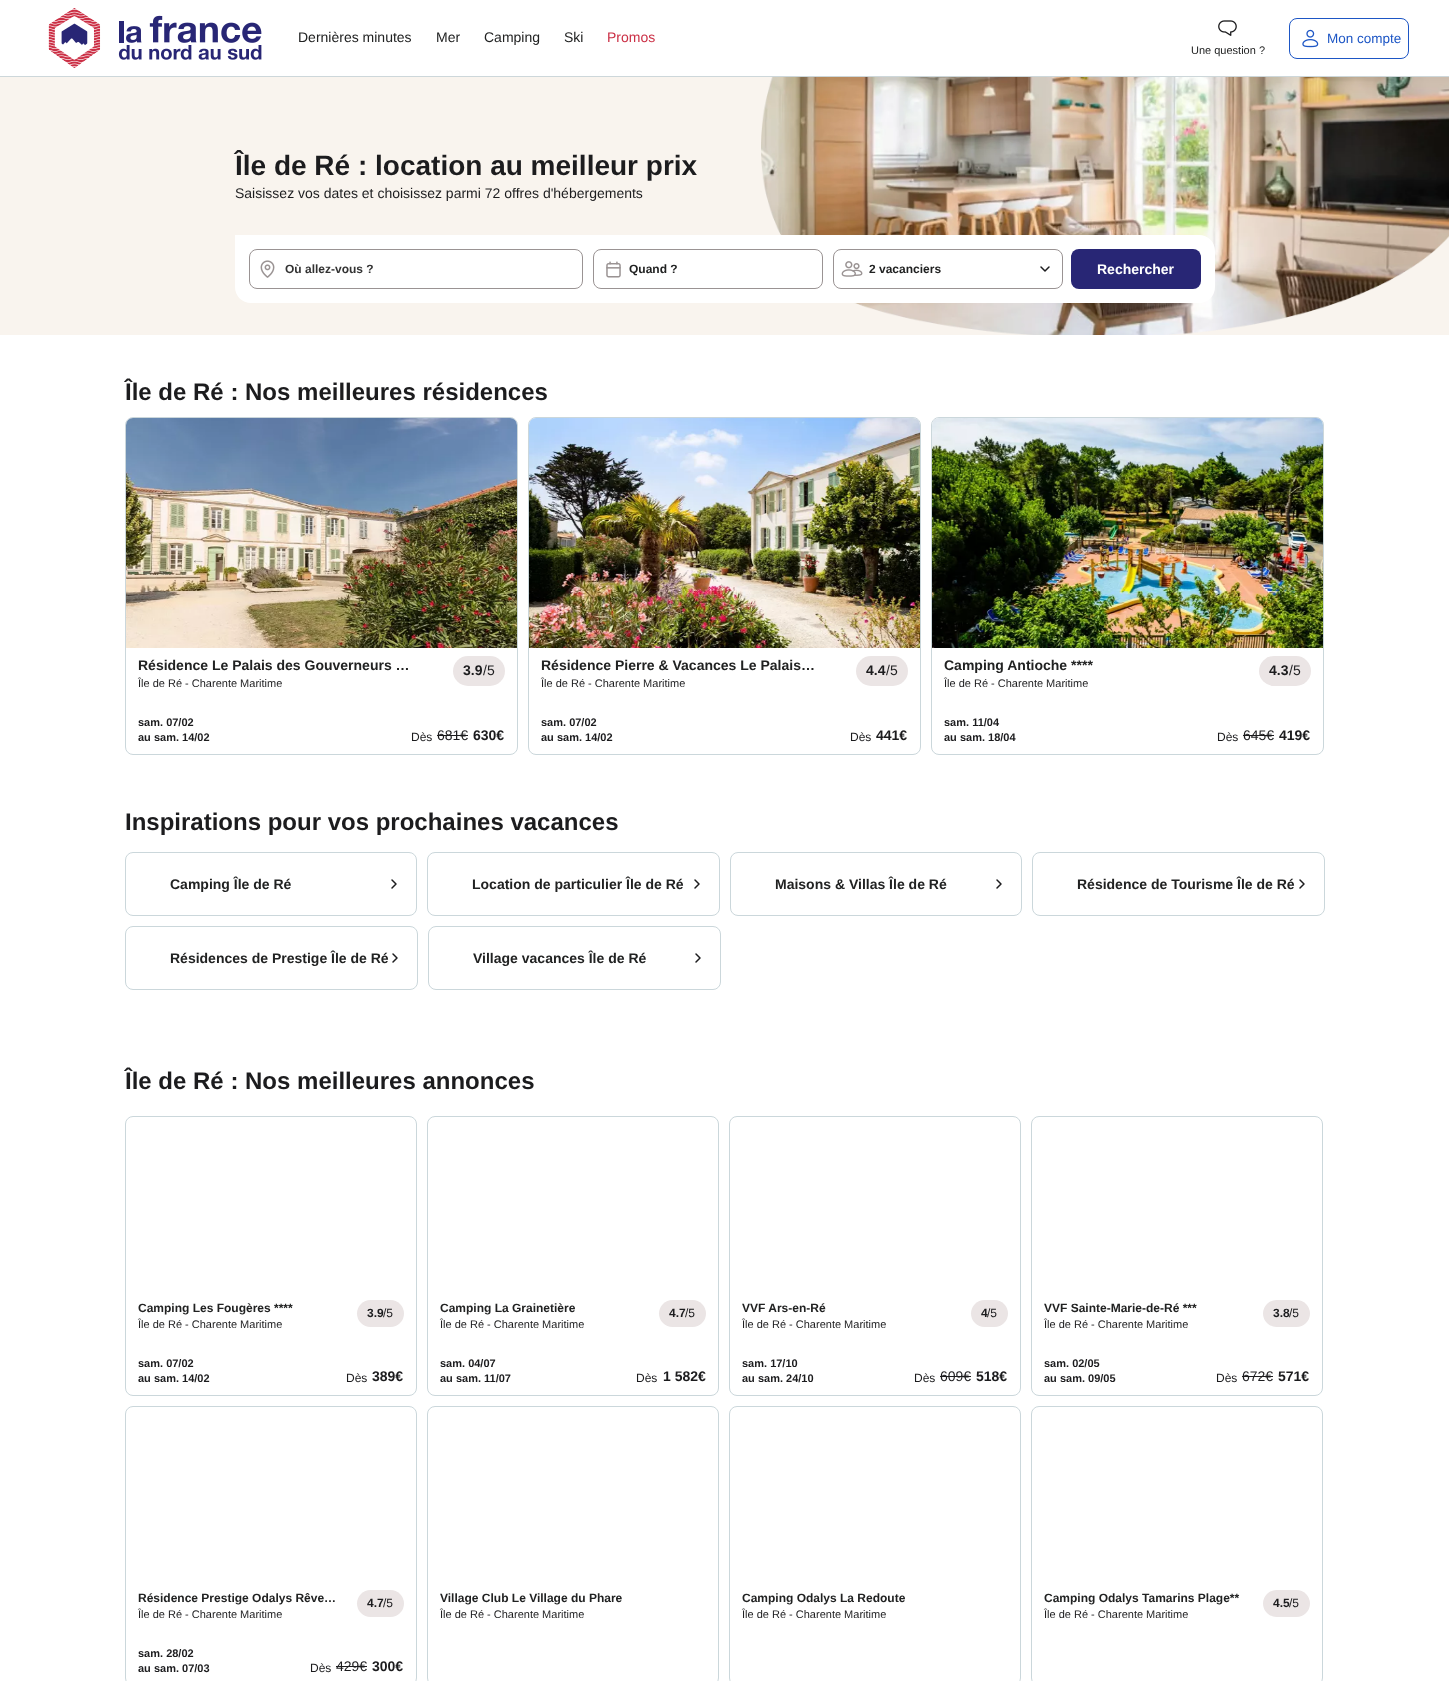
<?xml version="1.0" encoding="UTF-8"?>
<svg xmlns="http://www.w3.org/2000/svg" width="1449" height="1681">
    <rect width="100%" height="100%" fill="#FFFFFF"/>
    <rect x="0" y="76" width="1449" height="1" fill="#CDD7DA"/>
    <image x="48" y="8" width="214" height="60" href="img_01.png"/>
    <text x="298" y="42" font-family="Liberation Sans" font-size="14" fill="#212222">Dernières minutes</text>
    <text x="436" y="42" font-family="Liberation Sans" font-size="14" fill="#212222">Mer</text>
    <text x="484" y="42" font-family="Liberation Sans" font-size="14" fill="#212222">Camping</text>
    <text x="564" y="42" font-family="Liberation Sans" font-size="14" fill="#212222">Ski</text>
    <text x="607" y="42" font-family="Liberation Sans" font-size="14" fill="#CB2F45">Promos</text>
    <rect x="1289.5" y="18.5" width="119" height="40" rx="7.5" fill="none" stroke="#1D56C5"/>
    <image x="1302" y="29" width="17" height="19" href="img_02.png"/>
    <text x="1327" y="43" font-family="Liberation Sans" font-size="13.5" fill="#1D56C5">Mon compte</text>
    <image x="1218" y="20" width="19" height="16" href="img_03.png"/>
    <text x="1191" y="54" font-family="Liberation Sans" font-size="11" fill="#212222">Une question ?</text>
    <rect x="0" y="77" width="1449" height="258" fill="#F9F4EE"/>
    <image x="761" y="77" width="688" height="258" href="img_04.png"/>
    <text x="235" y="175" font-family="Liberation Sans" font-size="28" font-weight="700" fill="#1C1C1E">Île de Ré : location au meilleur prix</text>
    <text x="235" y="198" font-family="Liberation Sans" font-size="14" fill="#1C1C1E">Saisissez vos dates et choisissez parmi 72 offres d'hébergements</text>
    <path d="M 235 235 H 1199 C 1208 235 1215 242 1215 251 V 287 C 1215 296 1208 303 1199 303 H 251 C 242 303 235 296 235 287 Z" fill="#FFFFFF"/>
    <rect x="249.5" y="249.5" width="333" height="39" rx="7.5" fill="none" stroke="#9A9393"/>
    <image x="260" y="260" width="15" height="18" href="img_05.png"/>
    <text x="285" y="273" font-family="Liberation Sans" font-size="12" font-weight="700" fill="#333333">Où allez-vous ?</text>
    <rect x="593.5" y="249.5" width="229" height="39" rx="7.5" fill="none" stroke="#9A9393"/>
    <image x="606" y="261" width="15" height="17" href="img_06.png"/>
    <text x="629" y="273" font-family="Liberation Sans" font-size="12" font-weight="700" fill="#212222">Quand ?</text>
    <rect x="833.5" y="249.5" width="229" height="39" rx="7.5" fill="none" stroke="#9A9393"/>
    <image x="841" y="261" width="22" height="16" href="img_07.png"/>
    <text x="869" y="273" font-family="Liberation Sans" font-size="12" font-weight="700" fill="#212222">2 vacanciers</text>
    <path d="M 1049 267 L 1045 271 L 1041 267" fill="none" stroke="#1C1C1E" stroke-width="1.5" stroke-linecap="round" stroke-linejoin="round"/>
    <rect x="1071" y="249" width="130" height="40" rx="8" fill="#282675"/>
    <text x="1097" y="274" font-family="Liberation Sans" font-size="14" font-weight="700" fill="#FFFFFF">Rechercher</text>
    <text x="125" y="400" font-family="Liberation Sans" font-size="24" font-weight="700" fill="#1C1C1E">Île de Ré : Nos meilleures résidences</text>
    <rect x="125.5" y="417.5" width="392" height="337" rx="7.5" fill="none" stroke="#CBD7DB"/>
    <image x="126" y="418" width="391" height="230" href="img_08.png"/>
    <text x="138" y="670" font-family="Liberation Sans" font-size="14" font-weight="700" fill="#212222">Résidence Le Palais des Gouverneurs …</text>
    <text x="138" y="687" font-family="Liberation Sans" font-size="11" fill="#1C1C1E">Île de Ré - Charente Maritime</text>
    <rect x="453" y="656" width="52" height="30" rx="15" fill="#EBE5E5"/>
    <text x="463" y="675" font-family="Liberation Sans" font-size="14" font-weight="700" fill="#1C1C1E">3.9</text>
    <text x="483" y="675" font-family="Liberation Sans" font-size="14" fill="#1C1C1E">/5</text>
    <text font-family="Liberation Sans" font-size="11" font-weight="700" fill="#1C1C1E">
        <tspan x="138" y="726">sam. 07/02</tspan>
        <tspan x="138" y="741">au sam. 14/02</tspan>
    </text>
    <text x="411" y="741" font-family="Liberation Sans" font-size="12" fill="#1C1C1E">Dès</text>
    <text x="437" y="740" font-family="Liberation Sans" font-size="14" fill="#1C1C1E">681€</text>
    <rect x="437" y="735" width="31" height="1" fill="#1C1C1E"/>
    <text x="473" y="740" font-family="Liberation Sans" font-size="14" font-weight="700" fill="#1C1C1E">630€</text>
    <rect x="528.5" y="417.5" width="392" height="337" rx="7.5" fill="none" stroke="#CBD7DB"/>
    <image x="529" y="418" width="391" height="230" href="img_09.png"/>
    <text x="541" y="670" font-family="Liberation Sans" font-size="14" font-weight="700" fill="#212222">Résidence Pierre &amp; Vacances Le Palais…</text>
    <text x="541" y="687" font-family="Liberation Sans" font-size="11" fill="#1C1C1E">Île de Ré - Charente Maritime</text>
    <rect x="856" y="656" width="52" height="30" rx="15" fill="#EBE5E5"/>
    <text x="866" y="675" font-family="Liberation Sans" font-size="14" font-weight="700" fill="#1C1C1E">4.4</text>
    <text x="886" y="675" font-family="Liberation Sans" font-size="14" fill="#1C1C1E">/5</text>
    <text font-family="Liberation Sans" font-size="11" font-weight="700" fill="#1C1C1E">
        <tspan x="541" y="726">sam. 07/02</tspan>
        <tspan x="541" y="741">au sam. 14/02</tspan>
    </text>
    <text x="850" y="741" font-family="Liberation Sans" font-size="12" fill="#1C1C1E">Dès</text>
    <text x="876" y="740" font-family="Liberation Sans" font-size="14" font-weight="700" fill="#1C1C1E">441€</text>
    <rect x="931.5" y="417.5" width="392" height="337" rx="7.5" fill="none" stroke="#CBD7DB"/>
    <image x="932" y="418" width="391" height="230" href="img_10.png"/>
    <text x="944" y="670" font-family="Liberation Sans" font-size="14" font-weight="700" fill="#212222">Camping Antioche ****</text>
    <text x="944" y="687" font-family="Liberation Sans" font-size="11" fill="#1C1C1E">Île de Ré - Charente Maritime</text>
    <rect x="1259" y="656" width="52" height="30" rx="15" fill="#EBE5E5"/>
    <text x="1269" y="675" font-family="Liberation Sans" font-size="14" font-weight="700" fill="#1C1C1E">4.3</text>
    <text x="1289" y="675" font-family="Liberation Sans" font-size="14" fill="#1C1C1E">/5</text>
    <text font-family="Liberation Sans" font-size="11" font-weight="700" fill="#1C1C1E">
        <tspan x="944" y="726">sam. 11/04</tspan>
        <tspan x="944" y="741">au sam. 18/04</tspan>
    </text>
    <text x="1217" y="741" font-family="Liberation Sans" font-size="12" fill="#1C1C1E">Dès</text>
    <text x="1243" y="740" font-family="Liberation Sans" font-size="14" fill="#1C1C1E">645€</text>
    <rect x="1243" y="735" width="31" height="1" fill="#1C1C1E"/>
    <text x="1279" y="740" font-family="Liberation Sans" font-size="14" font-weight="700" fill="#1C1C1E">419€</text>
    <text x="125" y="830" font-family="Liberation Sans" font-size="24" font-weight="700" fill="#1C1C1E">Inspirations pour vos prochaines vacances</text>
    <rect x="125.5" y="852.5" width="291" height="63" rx="7.5" fill="none" stroke="#CBD7DB"/>
    <text x="170" y="889" font-family="Liberation Sans" font-size="14" font-weight="700" fill="#212222">Camping Île de Ré</text>
    <path d="M 392 880 L 396 884 L 392 888" fill="none" stroke="#1C1C1E" stroke-width="1.5" stroke-linecap="round" stroke-linejoin="round"/>
    <rect x="427.5" y="852.5" width="292" height="63" rx="7.5" fill="none" stroke="#CBD7DB"/>
    <text x="472" y="889" font-family="Liberation Sans" font-size="14" font-weight="700" fill="#212222">Location de particulier Île de Ré</text>
    <path d="M 695 880 L 699 884 L 695 888" fill="none" stroke="#1C1C1E" stroke-width="1.5" stroke-linecap="round" stroke-linejoin="round"/>
    <rect x="730.5" y="852.5" width="291" height="63" rx="7.5" fill="none" stroke="#CBD7DB"/>
    <text x="775" y="889" font-family="Liberation Sans" font-size="14" font-weight="700" fill="#212222">Maisons &amp; Villas Île de Ré</text>
    <path d="M 997 880 L 1001 884 L 997 888" fill="none" stroke="#1C1C1E" stroke-width="1.5" stroke-linecap="round" stroke-linejoin="round"/>
    <rect x="1032.5" y="852.5" width="292" height="63" rx="7.5" fill="none" stroke="#CBD7DB"/>
    <text x="1077" y="889" font-family="Liberation Sans" font-size="14" font-weight="700" fill="#212222">Résidence de Tourisme Île de Ré</text>
    <path d="M 1300 880 L 1304 884 L 1300 888" fill="none" stroke="#1C1C1E" stroke-width="1.5" stroke-linecap="round" stroke-linejoin="round"/>
    <rect x="125.5" y="926.5" width="292" height="63" rx="7.5" fill="none" stroke="#CBD7DB"/>
    <text x="170" y="963" font-family="Liberation Sans" font-size="14" font-weight="700" fill="#212222">Résidences de Prestige Île de Ré</text>
    <path d="M 393 954 L 397 958 L 393 962" fill="none" stroke="#1C1C1E" stroke-width="1.5" stroke-linecap="round" stroke-linejoin="round"/>
    <rect x="428.5" y="926.5" width="292" height="63" rx="7.5" fill="none" stroke="#CBD7DB"/>
    <text x="473" y="963" font-family="Liberation Sans" font-size="14" font-weight="700" fill="#212222">Village vacances Île de Ré</text>
    <path d="M 696 954 L 700 958 L 696 962" fill="none" stroke="#1C1C1E" stroke-width="1.5" stroke-linecap="round" stroke-linejoin="round"/>
    <text x="125" y="1089" font-family="Liberation Sans" font-size="24" font-weight="700" fill="#1C1C1E">Île de Ré : Nos meilleures annonces</text>
    <rect x="125.5" y="1116.5" width="291" height="279" rx="7.5" fill="none" stroke="#CBD7DB"/>
    <text x="138" y="1312" font-family="Liberation Sans" font-size="12" font-weight="700" fill="#212222">Camping Les Fougères ****</text>
    <text x="138" y="1328" font-family="Liberation Sans" font-size="11" fill="#1C1C1E">Île de Ré - Charente Maritime</text>
    <rect x="357" y="1300" width="47" height="27" rx="13.5" fill="#EBE5E5"/>
    <text x="367" y="1317" font-family="Liberation Sans" font-size="12" font-weight="700" fill="#1C1C1E">3.9</text>
    <text x="383" y="1317" font-family="Liberation Sans" font-size="12" fill="#1C1C1E">/5</text>
    <text font-family="Liberation Sans" font-size="11" font-weight="700" fill="#1C1C1E">
        <tspan x="138" y="1367">sam. 07/02</tspan>
        <tspan x="138" y="1382">au sam. 14/02</tspan>
    </text>
    <text x="346" y="1382" font-family="Liberation Sans" font-size="12" fill="#1C1C1E">Dès</text>
    <text x="372" y="1381" font-family="Liberation Sans" font-size="14" font-weight="700" fill="#1C1C1E">389€</text>
    <rect x="427.5" y="1116.5" width="291" height="279" rx="7.5" fill="none" stroke="#CBD7DB"/>
    <text x="440" y="1312" font-family="Liberation Sans" font-size="12" font-weight="700" fill="#212222">Camping La Grainetière</text>
    <text x="440" y="1328" font-family="Liberation Sans" font-size="11" fill="#1C1C1E">Île de Ré - Charente Maritime</text>
    <rect x="659" y="1300" width="47" height="27" rx="13.5" fill="#EBE5E5"/>
    <text x="669" y="1317" font-family="Liberation Sans" font-size="12" font-weight="700" fill="#1C1C1E">4.7</text>
    <text x="685" y="1317" font-family="Liberation Sans" font-size="12" fill="#1C1C1E">/5</text>
    <text font-family="Liberation Sans" font-size="11" font-weight="700" fill="#1C1C1E">
        <tspan x="440" y="1367">sam. 04/07</tspan>
        <tspan x="440" y="1382">au sam. 11/07</tspan>
    </text>
    <text x="636" y="1382" font-family="Liberation Sans" font-size="12" fill="#1C1C1E">Dès</text>
    <text x="663" y="1381" font-family="Liberation Sans" font-size="14" font-weight="700" fill="#1C1C1E">1 582€</text>
    <rect x="729.5" y="1116.5" width="291" height="279" rx="7.5" fill="none" stroke="#CBD7DB"/>
    <text x="742" y="1312" font-family="Liberation Sans" font-size="12" font-weight="700" fill="#212222">VVF Ars-en-Ré</text>
    <text x="742" y="1328" font-family="Liberation Sans" font-size="11" fill="#1C1C1E">Île de Ré - Charente Maritime</text>
    <rect x="971" y="1300" width="37" height="27" rx="13.5" fill="#EBE5E5"/>
    <text x="981" y="1317" font-family="Liberation Sans" font-size="12" font-weight="700" fill="#1C1C1E">4</text>
    <text x="987" y="1317" font-family="Liberation Sans" font-size="12" fill="#1C1C1E">/5</text>
    <text font-family="Liberation Sans" font-size="11" font-weight="700" fill="#1C1C1E">
        <tspan x="742" y="1367">sam. 17/10</tspan>
        <tspan x="742" y="1382">au sam. 24/10</tspan>
    </text>
    <text x="914" y="1382" font-family="Liberation Sans" font-size="12" fill="#1C1C1E">Dès</text>
    <text x="940" y="1381" font-family="Liberation Sans" font-size="14" fill="#1C1C1E">609€</text>
    <rect x="940" y="1376" width="31" height="1" fill="#1C1C1E"/>
    <text x="976" y="1381" font-family="Liberation Sans" font-size="14" font-weight="700" fill="#1C1C1E">518€</text>
    <rect x="1031.5" y="1116.5" width="291" height="279" rx="7.5" fill="none" stroke="#CBD7DB"/>
    <text x="1044" y="1312" font-family="Liberation Sans" font-size="12" font-weight="700" fill="#212222">VVF Sainte-Marie-de-Ré ***</text>
    <text x="1044" y="1328" font-family="Liberation Sans" font-size="11" fill="#1C1C1E">Île de Ré - Charente Maritime</text>
    <rect x="1263" y="1300" width="47" height="27" rx="13.5" fill="#EBE5E5"/>
    <text x="1273" y="1317" font-family="Liberation Sans" font-size="12" font-weight="700" fill="#1C1C1E">3.8</text>
    <text x="1289" y="1317" font-family="Liberation Sans" font-size="12" fill="#1C1C1E">/5</text>
    <text font-family="Liberation Sans" font-size="11" font-weight="700" fill="#1C1C1E">
        <tspan x="1044" y="1367">sam. 02/05</tspan>
        <tspan x="1044" y="1382">au sam. 09/05</tspan>
    </text>
    <text x="1216" y="1382" font-family="Liberation Sans" font-size="12" fill="#1C1C1E">Dès</text>
    <text x="1242" y="1381" font-family="Liberation Sans" font-size="14" fill="#1C1C1E">672€</text>
    <rect x="1242" y="1376" width="31" height="1" fill="#1C1C1E"/>
    <text x="1278" y="1381" font-family="Liberation Sans" font-size="14" font-weight="700" fill="#1C1C1E">571€</text>
    <rect x="125.5" y="1406.5" width="291" height="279" rx="7.5" fill="none" stroke="#CBD7DB"/>
    <text x="138" y="1602" font-family="Liberation Sans" font-size="12" font-weight="700" fill="#212222">Résidence Prestige Odalys Rêve…</text>
    <text x="138" y="1618" font-family="Liberation Sans" font-size="11" fill="#1C1C1E">Île de Ré - Charente Maritime</text>
    <rect x="357" y="1590" width="47" height="27" rx="13.5" fill="#EBE5E5"/>
    <text x="367" y="1607" font-family="Liberation Sans" font-size="12" font-weight="700" fill="#1C1C1E">4.7</text>
    <text x="383" y="1607" font-family="Liberation Sans" font-size="12" fill="#1C1C1E">/5</text>
    <text font-family="Liberation Sans" font-size="11" font-weight="700" fill="#1C1C1E">
        <tspan x="138" y="1657">sam. 28/02</tspan>
        <tspan x="138" y="1672">au sam. 07/03</tspan>
    </text>
    <text x="310" y="1672" font-family="Liberation Sans" font-size="12" fill="#1C1C1E">Dès</text>
    <text x="336" y="1671" font-family="Liberation Sans" font-size="14" fill="#1C1C1E">429€</text>
    <rect x="336" y="1666" width="31" height="1" fill="#1C1C1E"/>
    <text x="372" y="1671" font-family="Liberation Sans" font-size="14" font-weight="700" fill="#1C1C1E">300€</text>
    <rect x="427.5" y="1406.5" width="291" height="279" rx="7.5" fill="none" stroke="#CBD7DB"/>
    <text x="440" y="1602" font-family="Liberation Sans" font-size="12" font-weight="700" fill="#212222">Village Club Le Village du Phare</text>
    <text x="440" y="1618" font-family="Liberation Sans" font-size="11" fill="#1C1C1E">Île de Ré - Charente Maritime</text>
    <rect x="729.5" y="1406.5" width="291" height="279" rx="7.5" fill="none" stroke="#CBD7DB"/>
    <text x="742" y="1602" font-family="Liberation Sans" font-size="12" font-weight="700" fill="#212222">Camping Odalys La Redoute</text>
    <text x="742" y="1618" font-family="Liberation Sans" font-size="11" fill="#1C1C1E">Île de Ré - Charente Maritime</text>
    <rect x="1031.5" y="1406.5" width="291" height="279" rx="7.5" fill="none" stroke="#CBD7DB"/>
    <text x="1044" y="1602" font-family="Liberation Sans" font-size="12" font-weight="700" fill="#212222">Camping Odalys Tamarins Plage**</text>
    <text x="1044" y="1618" font-family="Liberation Sans" font-size="11" fill="#1C1C1E">Île de Ré - Charente Maritime</text>
    <rect x="1263" y="1590" width="47" height="27" rx="13.5" fill="#EBE5E5"/>
    <text x="1273" y="1607" font-family="Liberation Sans" font-size="12" font-weight="700" fill="#1C1C1E">4.5</text>
    <text x="1289" y="1607" font-family="Liberation Sans" font-size="12" fill="#1C1C1E">/5</text>
</svg>
